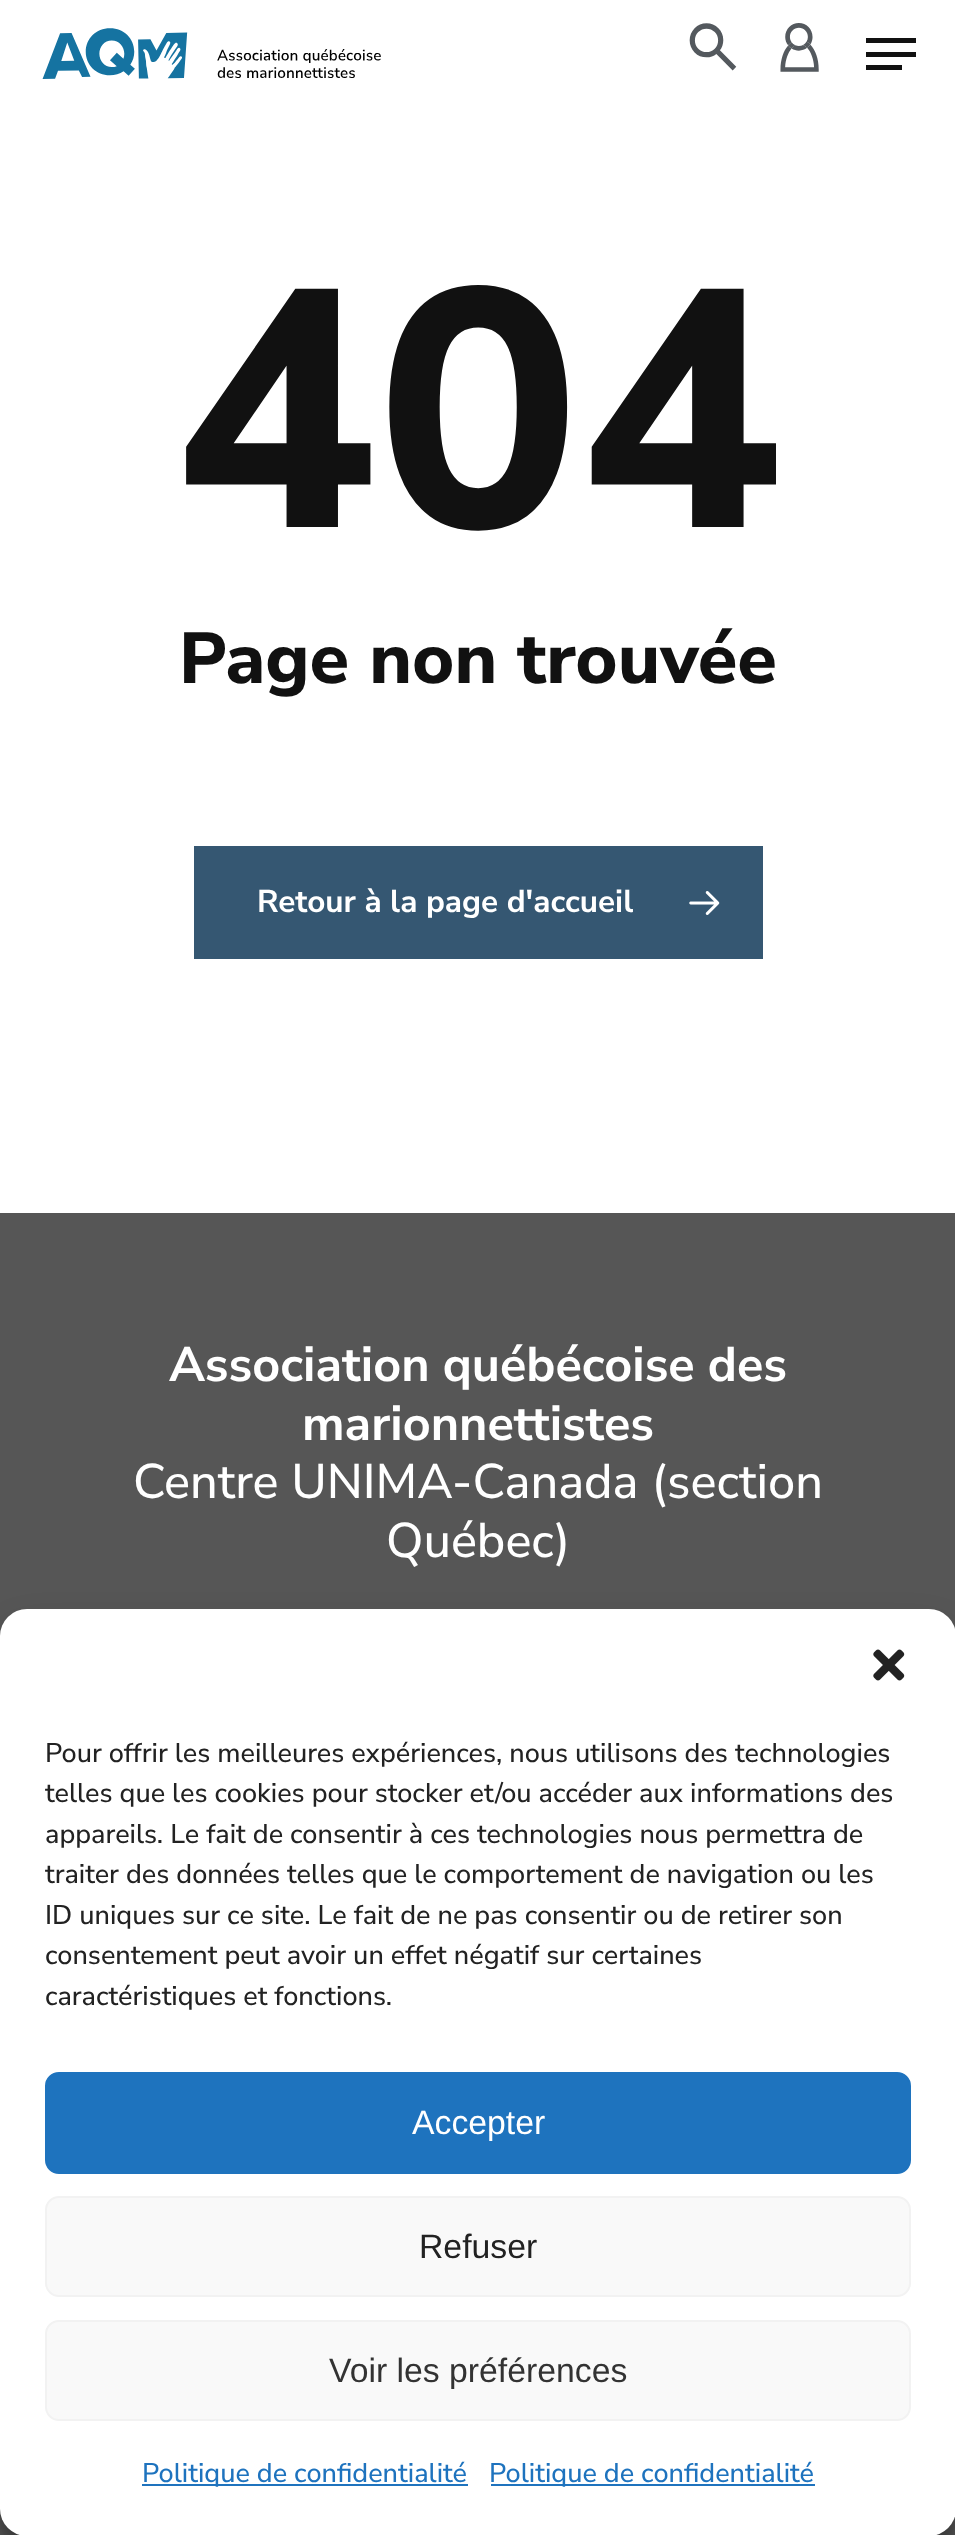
<?xml version="1.0" encoding="UTF-8"?>
<svg xmlns="http://www.w3.org/2000/svg" width="955" height="2535">
    <defs>
        <filter id="blur1" x="-50%" y="-200%" width="200%" height="500%"><feGaussianBlur stdDeviation="7"/></filter>
        <filter id="blur2" x="-50%" y="-200%" width="200%" height="500%"><feGaussianBlur stdDeviation="22.5"/></filter>
    </defs>
    <rect width="100%" height="100%" fill="#FFFFFF"/>
    <image x="42" y="28" width="339" height="51" href="img_01.png"/>
    <image x="689" y="23" width="48" height="48" href="img_02.png"/>
    <image x="780" y="23" width="39" height="49" href="img_03.png"/>
    <rect x="866" y="38" width="50" height="5" fill="#111111"/>
    <rect x="866" y="65" width="36" height="5" fill="#111111"/>
    <rect x="866" y="52" width="50" height="5" fill="#111111"/>
    <text x="174" y="527" font-family="Nunito Sans" font-size="338" font-weight="800" fill="#111111">404</text>
    <text x="179" y="683" font-family="Nunito Sans" font-size="72" font-weight="800" fill="#111111">Page non trouvée</text>
    <rect x="194" y="846" width="569" height="113" fill="#355772"/>
    <text x="257" y="912" font-family="Nunito Sans" font-size="31.5" font-weight="700" fill="#FFFFFF">Retour à la page d'accueil</text>
    <image x="689" y="891" width="31" height="24" href="img_04.png"/>
    <rect x="0" y="1213" width="955" height="1322" fill="#565656"/>
    <text x="169" y="1381" font-family="Nunito Sans" font-size="48.6" font-weight="700" fill="#FFFFFF">Association québécoise des</text>
    <text x="302" y="1440" font-family="Nunito Sans" font-size="48.6" font-weight="700" fill="#FFFFFF">marionnettistes</text>
    <text x="133" y="1498" font-family="Nunito Sans" font-size="48.6" font-weight="500" fill="#FFFFFF">Centre UNIMA-Canada (section</text>
    <text x="386" y="1557" font-family="Nunito Sans" font-size="48.6" font-weight="500" fill="#FFFFFF">Québec)</text>
    <rect x="0" y="1622" width="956" height="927" rx="27" fill="#000000" fill-opacity="0.23" filter="url(#blur1)"/>
    <rect x="0" y="1631" width="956" height="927" rx="27" fill="#000000" fill-opacity="0.19" filter="url(#blur2)"/>
    <rect x="0" y="1609" width="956" height="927" rx="27" fill="#FFFFFF"/>
    <image x="873" y="1649" width="32" height="32" href="img_05.png"/>
    <text font-family="Nunito Sans" font-size="27" font-weight="500" fill="#222222">
        <tspan x="45" y="1762">Pour offrir les meilleures expériences, nous utilisons des technologies</tspan>
        <tspan x="45" y="1802">telles que les cookies pour stocker et/ou accéder aux informations des</tspan>
        <tspan x="45" y="1843">appareils. Le fait de consentir à ces technologies nous permettra de</tspan>
        <tspan x="45" y="1883">traiter des données telles que le comportement de navigation ou les</tspan>
        <tspan x="45" y="1924">ID uniques sur ce site. Le fait de ne pas consentir ou de retirer son</tspan>
        <tspan x="45" y="1964">consentement peut avoir un effet négatif sur certaines</tspan>
        <tspan x="45" y="2005">caractéristiques et fonctions.</tspan>
    </text>
    <rect x="46" y="2073" width="864" height="100" rx="13" fill="#1E73BE" stroke="#1E73BE" stroke-width="2"/>
    <text x="412" y="2134" font-family="Liberation Sans" font-size="33.75" fill="#FFFFFF">Accepter</text>
    <rect x="46" y="2197" width="864" height="99" rx="13" fill="#F9F9F9" stroke="#F2F2F2" stroke-width="2"/>
    <text x="419" y="2258" font-family="Liberation Sans" font-size="33.75" fill="#222222">Refuser</text>
    <rect x="46" y="2321" width="864" height="99" rx="13" fill="#F9F9F9" stroke="#F2F2F2" stroke-width="2"/>
    <text x="329" y="2382" font-family="Liberation Sans" font-size="33.75" fill="#333333">Voir les préférences</text>
    <rect x="142" y="2484" width="326" height="2" fill="#1E73BE"/>
    <text x="142" y="2482" font-family="Nunito Sans" font-size="27" font-weight="500" fill="#1E73BE">Politique de confidentialité</text>
    <rect x="491" y="2484" width="324" height="2" fill="#1E73BE"/>
    <text x="489" y="2482" font-family="Nunito Sans" font-size="27" font-weight="500" fill="#1E73BE">Politique de confidentialité</text>
</svg>
